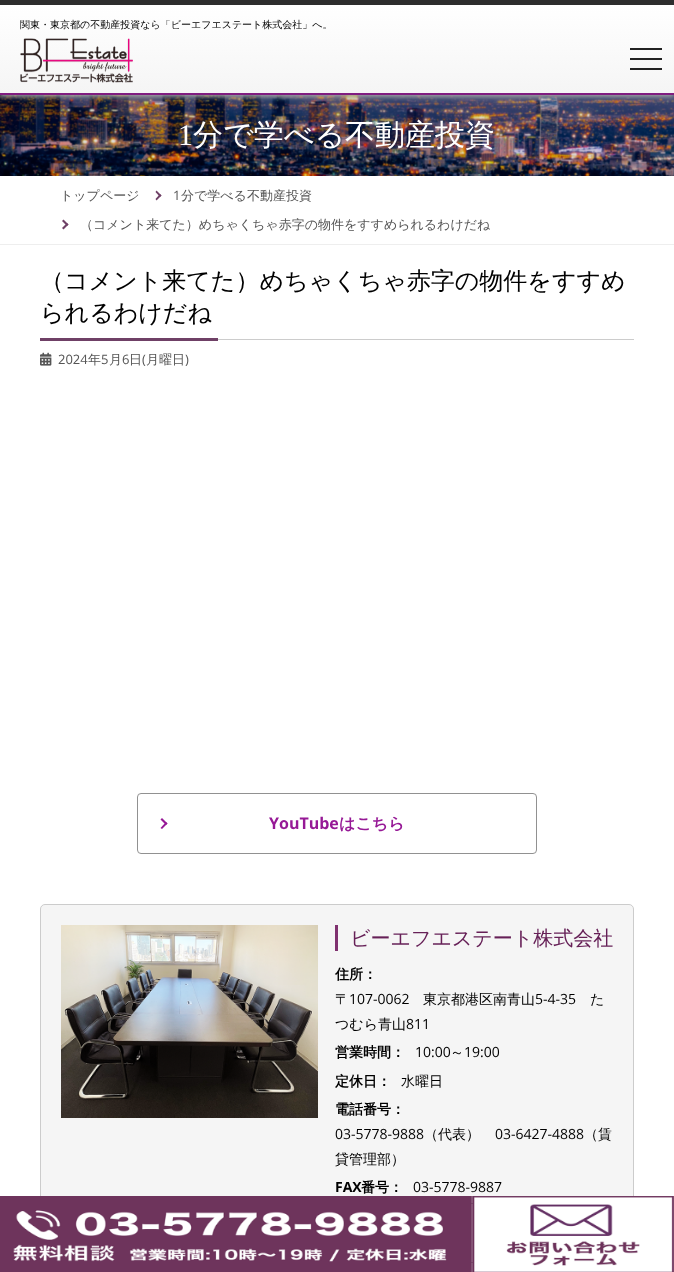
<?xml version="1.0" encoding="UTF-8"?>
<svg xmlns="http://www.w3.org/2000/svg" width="674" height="1272">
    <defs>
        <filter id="blur1" x="-50%" y="-200%" width="200%" height="500%"><feGaussianBlur stdDeviation="2.5"/></filter>
        <linearGradient id="g1" gradientUnits="userSpaceOnUse" x1="337" y1="5" x2="337" y2="93"><stop offset="0" stop-color="#FFFFFF"/><stop offset="1" stop-color="#F5F5F5"/></linearGradient>
    </defs>
    <rect width="100%" height="100%" fill="#FFFFFF"/>
    <image x="0" y="95" width="674" height="81" href="img_02.png"/>
    <rect x="0" y="2" width="674" height="95" fill="#A5A5A5" filter="url(#blur1)"/>
    <rect x="0" y="5" width="674" height="88" fill="url(#g1)"/>
    <rect x="0" y="0" width="674" height="5" fill="#2D2D2D"/>
    <rect x="0" y="93" width="674" height="2" fill="#801D80"/>
    <text x="20" y="28" font-family="WenQuanYi Zen Hei" font-size="10" font-weight="500" fill="#000000">関東・東京都の不動産投資なら「ビーエフエステート株式会社」へ。</text>
    <image x="20" y="38" width="113" height="45" href="img_01.png"/>
    <rect x="630" y="58" width="32" height="2" fill="#222222"/>
    <rect x="630" y="48" width="32" height="2" fill="#222222"/>
    <rect x="630" y="68" width="32" height="2" fill="#222222"/>
    <text x="178" y="145" font-family="Liberation Serif" font-size="30" fill="#FFFFFF">1</text>
    <text x="193" y="145" font-family="WenQuanYi Zen Hei" font-size="30" font-weight="500" fill="#FFFFFF">分で学べる不動産投資</text>
    <rect x="0" y="244" width="674" height="1" fill="#EEEEEE"/>
    <text x="60" y="200" font-family="WenQuanYi Zen Hei" font-size="13" font-weight="500" fill="#555555">トップページ</text>
    <path d="M 156.5 190.5 L 161.5 195.5 L 160 197 L 155.5 192 Z" fill="#6F4066"/>
    <path d="M 160 194 L 161.5 195.5 L 156.5 200.5 L 155.5 199 Z" fill="#6F4066"/>
    <text x="173" y="200" font-family="Open Sans" font-size="13" fill="#555555">1</text>
    <text x="181" y="200" font-family="WenQuanYi Zen Hei" font-size="13" font-weight="500" fill="#555555">分で学べる不動産投資</text>
    <path d="M 63.5 219.5 L 68.5 224.5 L 67 226 L 62 221 Z" fill="#6F4066"/>
    <path d="M 67 223 L 68.5 224.5 L 63.5 229.5 L 62 228 Z" fill="#6F4066"/>
    <text x="80" y="229" font-family="WenQuanYi Zen Hei" font-size="13" font-weight="500" fill="#555555">（コメント来てた）めちゃくちゃ赤字の物件をすすめられるわけだね</text>
    <rect x="218" y="339" width="416" height="1" fill="#CCCCCC"/>
    <text font-family="WenQuanYi Zen Hei" font-size="24" font-weight="500" fill="#000000">
        <tspan x="40" y="289">（コメント来てた）めちゃくちゃ赤字の物件をすすめ</tspan>
        <tspan x="40" y="321">られるわけだね</tspan>
    </text>
    <rect x="40" y="338" width="178" height="3" fill="#6F4066"/>
    <image x="40" y="352" width="12" height="14" href="img_03.png"/>
    <text x="58" y="364" font-family="Open Sans" font-size="13" fill="#555555">2024</text>
    <text x="88" y="364" font-family="WenQuanYi Zen Hei" font-size="13" font-weight="500" fill="#555555">年</text>
    <text x="101" y="364" font-family="Open Sans" font-size="13" fill="#555555">5</text>
    <text x="109" y="364" font-family="WenQuanYi Zen Hei" font-size="13" font-weight="500" fill="#555555">月</text>
    <text x="122" y="364" font-family="Open Sans" font-size="13" fill="#555555">6</text>
    <text x="129" y="364" font-family="WenQuanYi Zen Hei" font-size="13" font-weight="500" fill="#555555">日 月曜日</text>
    <text x="142" y="364" font-family="Open Sans" font-size="13" fill="#555555">(</text>
    <text x="185" y="364" font-family="Open Sans" font-size="13" fill="#555555">)</text>
    <rect x="137.5" y="793.5" width="399" height="60" rx="3.5" fill="none" stroke="#919191"/>
    <path d="M 162 818 L 167.5 823.5 L 166 825 L 160.5 819.5 Z" fill="#961996"/>
    <path d="M 166 822 L 167.5 823.5 L 162 829 L 160.5 828 Z" fill="#961996"/>
    <text x="269" y="829" font-family="Open Sans" font-size="16" font-weight="700" fill="#961996">YouTube</text>
    <text x="339" y="829" font-family="WenQuanYi Zen Hei" font-size="16" font-weight="700" fill="#961996">はこちら</text>
    <rect x="40.5" y="904.5" width="593" height="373" rx="4.5" fill="#F5F5F5" stroke="#CCCCCC"/>
    <image x="61" y="925" width="257" height="193" href="img_04.png"/>
    <rect x="335" y="925" width="3" height="26" fill="#7F316F"/>
    <text x="350" y="945" font-family="WenQuanYi Zen Hei" font-size="20" font-weight="500" fill="#662057">ビーエフエステート株式会社</text>
    <text x="335" y="979" font-family="WenQuanYi Zen Hei" font-size="14" font-weight="700" fill="#000000">住所：</text>
    <text x="335" y="1004" font-family="WenQuanYi Zen Hei" font-size="14" font-weight="500" fill="#000000">〒</text>
    <text x="349" y="1004" font-family="Open Sans" font-size="14" fill="#000000">107-0062</text>
    <text x="423" y="1004" font-family="WenQuanYi Zen Hei" font-size="14" font-weight="500" fill="#000000">東京都港区南青山</text>
    <text x="535" y="1004" font-family="Open Sans" font-size="14" fill="#000000">5-4-35</text>
    <text x="590" y="1004" font-family="WenQuanYi Zen Hei" font-size="14" font-weight="500" fill="#000000">た</text>
    <text x="335" y="1029" font-family="WenQuanYi Zen Hei" font-size="14" font-weight="500" fill="#000000">つむら青山</text>
    <text x="406" y="1029" font-family="Open Sans" font-size="14" fill="#000000">811</text>
    <text x="335" y="1057" font-family="WenQuanYi Zen Hei" font-size="14" font-weight="700" fill="#000000">営業時間：</text>
    <text x="415" y="1057" font-family="Open Sans" font-size="14" fill="#000000">10:00</text>
    <text x="450" y="1057" font-family="WenQuanYi Zen Hei" font-size="14" font-weight="500" fill="#000000">～</text>
    <text x="464" y="1057" font-family="Open Sans" font-size="14" fill="#000000">19:00</text>
    <text x="335" y="1086" font-family="WenQuanYi Zen Hei" font-size="14" font-weight="700" fill="#000000">定休日：</text>
    <text x="401" y="1086" font-family="WenQuanYi Zen Hei" font-size="14" font-weight="500" fill="#000000">水曜日</text>
    <text x="335" y="1114" font-family="WenQuanYi Zen Hei" font-size="14" font-weight="700" fill="#000000">電話番号：</text>
    <text x="335" y="1139" font-family="Open Sans" font-size="14" fill="#000000">03-5778-9888</text>
    <text x="424" y="1139" font-family="WenQuanYi Zen Hei" font-size="14" font-weight="500" fill="#000000">（代表）</text>
    <text x="495" y="1139" font-family="Open Sans" font-size="14" fill="#000000">03-6427-4888</text>
    <text x="584" y="1139" font-family="WenQuanYi Zen Hei" font-size="14" font-weight="500" fill="#000000">（賃</text>
    <text x="335" y="1164" font-family="WenQuanYi Zen Hei" font-size="14" font-weight="500" fill="#000000">貸管理部）</text>
    <text x="335" y="1192" font-family="Open Sans" font-size="14" font-weight="700" fill="#000000">FAX</text>
    <text x="361" y="1192" font-family="WenQuanYi Zen Hei" font-size="14" font-weight="700" fill="#000000">番号：</text>
    <text x="413" y="1192" font-family="Open Sans" font-size="14" fill="#000000">03-5778-9887</text>
    <rect x="335.5" y="1203.5" width="277" height="59" fill="none" stroke="#919191"/>
    <image x="0" y="1196" width="472" height="76" href="img_05.png"/>
    <image x="472" y="1196" width="202" height="76" href="img_06.png"/>
</svg>
